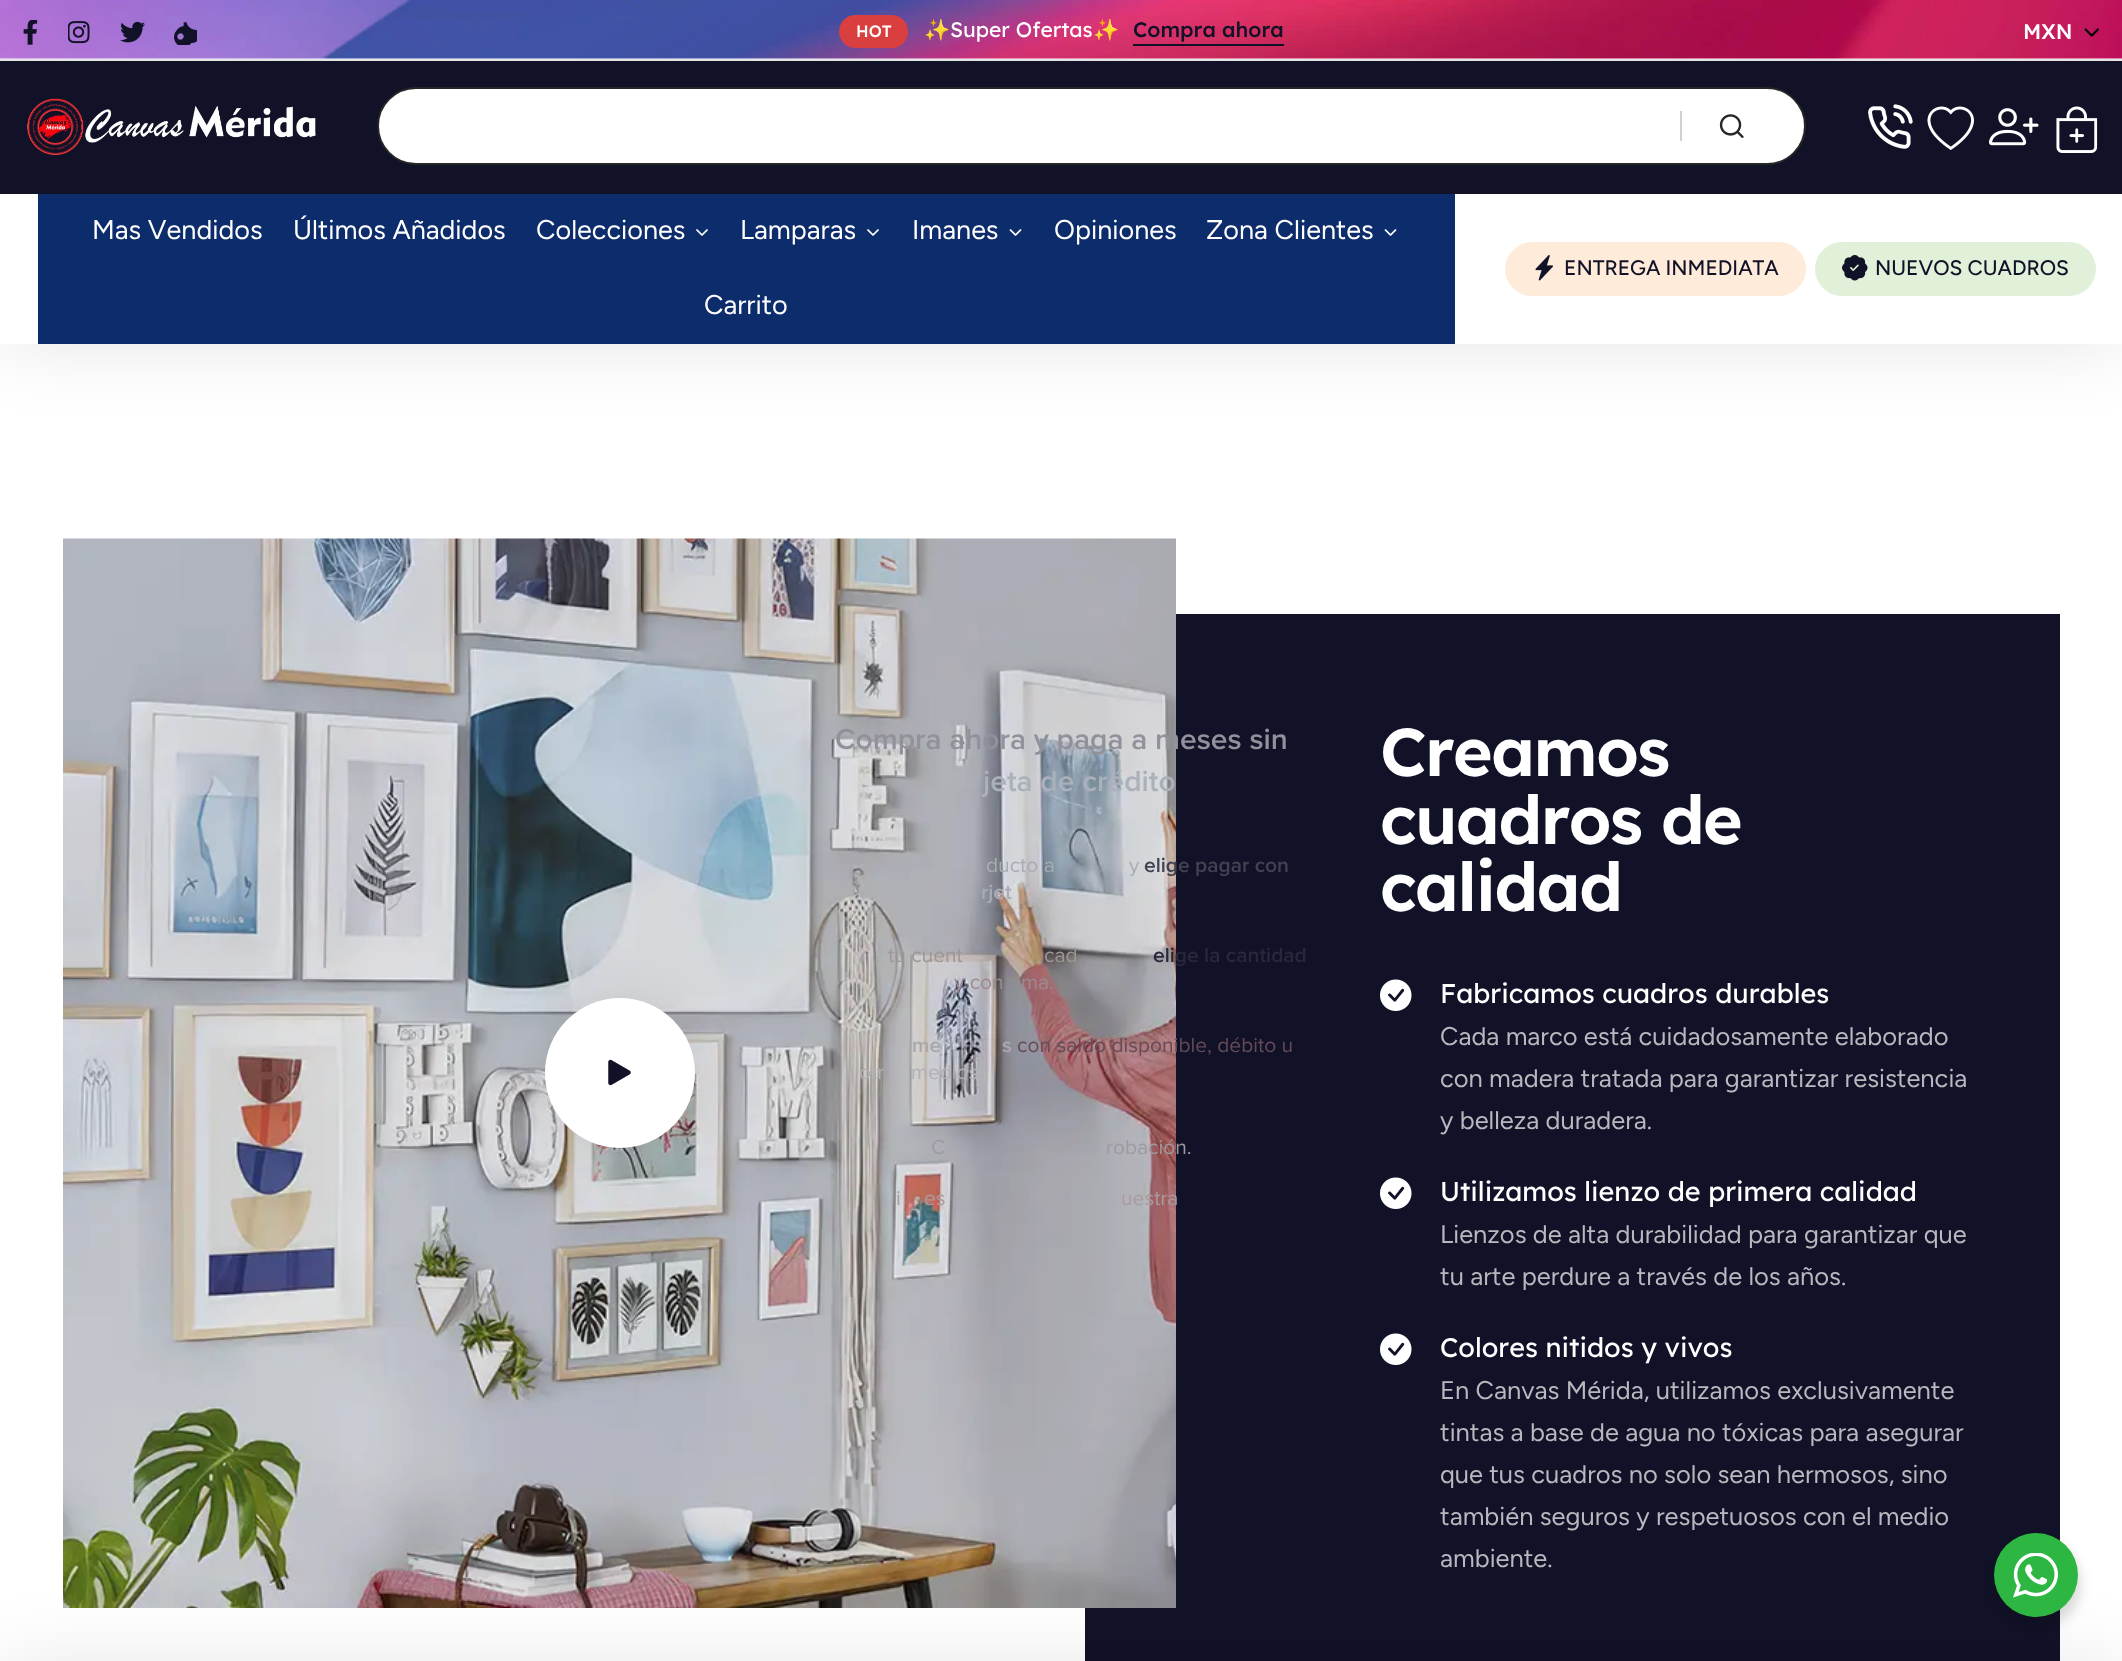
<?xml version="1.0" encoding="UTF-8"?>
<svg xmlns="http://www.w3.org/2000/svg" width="2122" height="1661">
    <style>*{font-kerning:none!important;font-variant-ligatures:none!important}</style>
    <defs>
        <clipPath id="clip1"><path d="M 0 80 H 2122 V 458 H 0 Z M 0 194 H 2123 V 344 H 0 Z" clip-rule="evenodd"/></clipPath>
        <filter id="blur1" x="-50%" y="-200%" width="200%" height="500%"><feGaussianBlur stdDeviation="37.5"/></filter>
        <filter id="blur2" x="-50%" y="-200%" width="200%" height="500%"><feGaussianBlur stdDeviation="22.5"/></filter>
        <filter id="blur3" x="-50%" y="-200%" width="200%" height="500%"><feGaussianBlur stdDeviation="6"/></filter>
    </defs>
    <rect width="100%" height="100%" fill="#FFFFFF"/>
    <image x="0" y="0" width="2122" height="59" href="img_01.png"/>
    <rect x="0" y="59" width="2122" height="2" fill="#E4E4E4"/>
    <image x="23" y="20" width="15" height="25" href="img_02.png"/>
    <image x="68" y="21" width="22" height="23" href="img_03.png"/>
    <image x="120" y="21" width="25" height="22" href="img_04.png"/>
    <image x="174" y="22" width="23" height="23" href="img_05.png"/>
    <rect x="839" y="15" width="69" height="33" rx="16.5" fill="#DA3F3F"/>
    <text x="856" y="37" font-family="Lexend" font-size="16.5" font-weight="500" fill="#FFFFFF">HOT</text>
    <text x="924" y="37" font-family="Noto Color Emoji" font-size="21" fill="#FFFFFF">✨</text>
    <text x="950" y="37" font-family="Lexend" font-size="21" fill="#FFFFFF">Super Ofertas</text>
    <text x="1093" y="37" font-family="Noto Color Emoji" font-size="21" fill="#FFFFFF">✨</text>
    <text x="1133" y="37" font-family="Lexend" font-size="21" font-weight="500" fill="#111228">Compra ahora</text>
    <rect x="1133" y="44" width="151" height="2" fill="#111228"/>
    <text x="2023" y="39" font-family="Lexend" font-size="21" font-weight="500" fill="#FFFFFF">MXN</text>
    <image x="2084" y="28" width="15" height="9" href="img_06.png"/>
    <g clip-path="url(#clip1)">
        <rect x="0" y="194" width="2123" height="150" fill="#000000" fill-opacity="0.1" filter="url(#blur1)"/>
    </g>
    <rect x="0" y="61" width="2122" height="133" fill="#111228"/>
    <image x="27" y="98" width="289" height="57" href="img_07.png"/>
    <rect x="378" y="88" width="1427" height="76" rx="38" fill="#FFFFFF" stroke="#262626" stroke-width="2"/>
    <rect x="1680" y="111" width="2" height="30" fill="#CFD0D4"/>
    <image x="1719" y="114" width="25" height="24" href="img_08.png"/>
    <image x="1868" y="104" width="45" height="45" href="img_09.png"/>
    <image x="1927" y="106" width="47" height="44" href="img_10.png"/>
    <image x="1989" y="108" width="50" height="38" href="img_11.png"/>
    <image x="2056" y="106" width="42" height="47" href="img_12.png"/>
    <rect x="38" y="194" width="1417" height="150" fill="#0D2C6B"/>
    <text x="92" y="239" font-family="Figtree" font-size="27" fill="#FFFFFF">Mas Vendidos</text>
    <text x="293" y="239" font-family="Figtree" font-size="27" fill="#FFFFFF">Últimos Añadidos</text>
    <text x="536" y="239" font-family="Figtree" font-size="27" fill="#FFFFFF">Colecciones</text>
    <image x="696" y="229" width="12" height="7" href="img_13.png"/>
    <text x="740" y="239" font-family="Figtree" font-size="27" fill="#FFFFFF">Lamparas</text>
    <image x="867" y="229" width="12" height="7" href="img_13.png"/>
    <text x="912" y="239" font-family="Figtree" font-size="27" fill="#FFFFFF">Imanes</text>
    <image x="1009" y="229" width="13" height="7" href="img_14.png"/>
    <text x="1054" y="239" font-family="Figtree" font-size="27" fill="#FFFFFF">Opiniones</text>
    <text x="1206" y="239" font-family="Figtree" font-size="27" fill="#FFFFFF">Zona Clientes</text>
    <image x="1384" y="229" width="13" height="7" href="img_14.png"/>
    <text x="704" y="314" font-family="Figtree" font-size="27" fill="#FFFFFF">Carrito</text>
    <rect x="1505" y="242" width="301" height="54" rx="27" fill="#FFEBD9"/>
    <image x="1535" y="255" width="18" height="26" href="img_15.png"/>
    <text x="1564" y="275" font-family="Figtree" font-size="21" font-weight="500" fill="#111228">ENTREGA INMEDIATA</text>
    <rect x="1815" y="242" width="281" height="54" rx="27" fill="#E1F0D8"/>
    <image x="1842" y="255" width="26" height="26" href="img_16.png"/>
    <text x="1875" y="275" font-family="Figtree" font-size="21" font-weight="500" fill="#111228">NUEVOS CUADROS</text>
    <rect x="1085" y="614" width="975" height="1047" fill="#111228"/>
    <image x="63" y="538" width="1113" height="1070" href="img_17.png"/>
    <text x="835" y="749" font-family="Proxima Nova" font-size="30" font-weight="600" fill="#90919B">Compra ahora y paga a meses sin</text>
    <text x="983" y="791" font-family="Proxima Nova" font-size="30" font-weight="600" fill="#ABB1BA">jeta de crédito</text>
    <text x="986" y="872" font-family="Proxima Nova" font-size="21" fill="#A8ACB4">ducto a</text>
    <text x="1129" y="872" font-family="Proxima Nova" font-size="21" fill="#A8ACB4">y</text>
    <text x="1144" y="872" font-family="Proxima Nova" font-size="21" font-weight="600" fill="#434251">elige pagar con</text>
    <text x="981" y="899" font-family="Proxima Nova" font-size="21" font-weight="600" fill="#A8ACB4">rjet</text>
    <text x="888" y="962" font-family="Proxima Nova" font-size="21" fill="#9D9694">tu cuent</text>
    <text x="1044" y="962" font-family="Proxima Nova" font-size="21" fill="#9D9694">cad</text>
    <text x="1153" y="962" font-family="Proxima Nova" font-size="21" font-weight="600" fill="#29283B">elige la cantidad</text>
    <text x="954" y="989" font-family="Proxima Nova" font-size="21" fill="#9C8A90">y con</text>
    <text x="1021" y="989" font-family="Proxima Nova" font-size="21" fill="#9C8A90">ma.</text>
    <text x="912" y="1052" font-family="Proxima Nova" font-size="21" font-weight="600" fill="#AAA8AB">me</text>
    <text x="1002" y="1052" font-family="Proxima Nova" font-size="21" font-weight="600" fill="#AAA8AB">s</text>
    <text x="1017" y="1052" font-family="Proxima Nova" font-size="21" fill="#654B58">con saldo disponible, débito u</text>
    <text x="859" y="1079" font-family="Proxima Nova" font-size="21" fill="#B2B0B3">otr</text>
    <text x="911" y="1079" font-family="Proxima Nova" font-size="21" fill="#B2B0B3">medios</text>
    <text x="931" y="1154" font-family="Proxima Nova" font-size="21" fill="#9F98A0">C</text>
    <text x="1106" y="1154" font-family="Proxima Nova" font-size="21" fill="#9F98A0">robación.</text>
    <text x="896" y="1205" font-family="Proxima Nova" font-size="21" fill="#AA9B9F">i</text>
    <text x="924" y="1205" font-family="Proxima Nova" font-size="21" fill="#AA9B9F">es</text>
    <text x="1121" y="1205" font-family="Proxima Nova" font-size="21" fill="#AA9B9F">uestra</text>
    <rect x="545" y="998" width="150" height="150" rx="75" fill="#000000" fill-opacity="0.08" filter="url(#blur2)"/>
    <circle cx="620" cy="1073" r="75" fill="#FFFFFF"/>
    <image x="608" y="1059" width="23" height="27" href="img_18.png"/>
    <text font-family="Lexend" font-size="67.5" font-weight="600" letter-spacing="-1.5" fill="#FFFFFF">
        <tspan x="1380" y="776">Creamos</tspan>
        <tspan x="1380" y="844">cuadros de</tspan>
        <tspan x="1380" y="911">calidad</tspan>
    </text>
    <image x="1380" y="979" width="32" height="32" href="img_19.png"/>
    <text x="1440" y="1003" font-family="Lexend" font-size="27" fill="#FFFFFF">Fabricamos cuadros durables</text>
    <text font-family="Figtree" font-size="25.5" fill="#B8B8BF">
        <tspan x="1440" y="1045">Cada marco está cuidadosamente elaborado</tspan>
        <tspan x="1440" y="1087">con madera tratada para garantizar resistencia</tspan>
        <tspan x="1440" y="1129">y belleza duradera.</tspan>
    </text>
    <image x="1380" y="1177" width="32" height="32" href="img_19.png"/>
    <text x="1440" y="1201" font-family="Lexend" font-size="27" fill="#FFFFFF">Utilizamos lienzo de primera calidad</text>
    <text font-family="Figtree" font-size="25.5" fill="#B8B8BF">
        <tspan x="1440" y="1243">Lienzos de alta durabilidad para garantizar que</tspan>
        <tspan x="1440" y="1285">tu arte perdure a través de los años.</tspan>
    </text>
    <image x="1380" y="1333" width="32" height="32" href="img_19.png"/>
    <text x="1440" y="1357" font-family="Lexend" font-size="27" fill="#FFFFFF">Colores nitidos y vivos</text>
    <text font-family="Figtree" font-size="25.5" fill="#B8B8BF">
        <tspan x="1440" y="1399">En Canvas Mérida, utilizamos exclusivamente</tspan>
        <tspan x="1440" y="1441">tintas a base de agua no tóxicas para asegurar</tspan>
        <tspan x="1440" y="1483">que tus cuadros no solo sean hermosos, sino</tspan>
        <tspan x="1440" y="1525">también seguros y respetuosos con el medio</tspan>
        <tspan x="1440" y="1567">ambiente.</tspan>
    </text>
    <rect x="0" y="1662" width="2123" height="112" fill="#000000" fill-opacity="0.09" filter="url(#blur1)"/>
    <rect x="1991" y="1539" width="90" height="90" rx="45" fill="#000000" fill-opacity="0.14" filter="url(#blur3)"/>
    <circle cx="2036" cy="1575" r="42" fill="#2DB742"/>
    <image x="2013" y="1553" width="45" height="45" href="img_20.png"/>
</svg>
